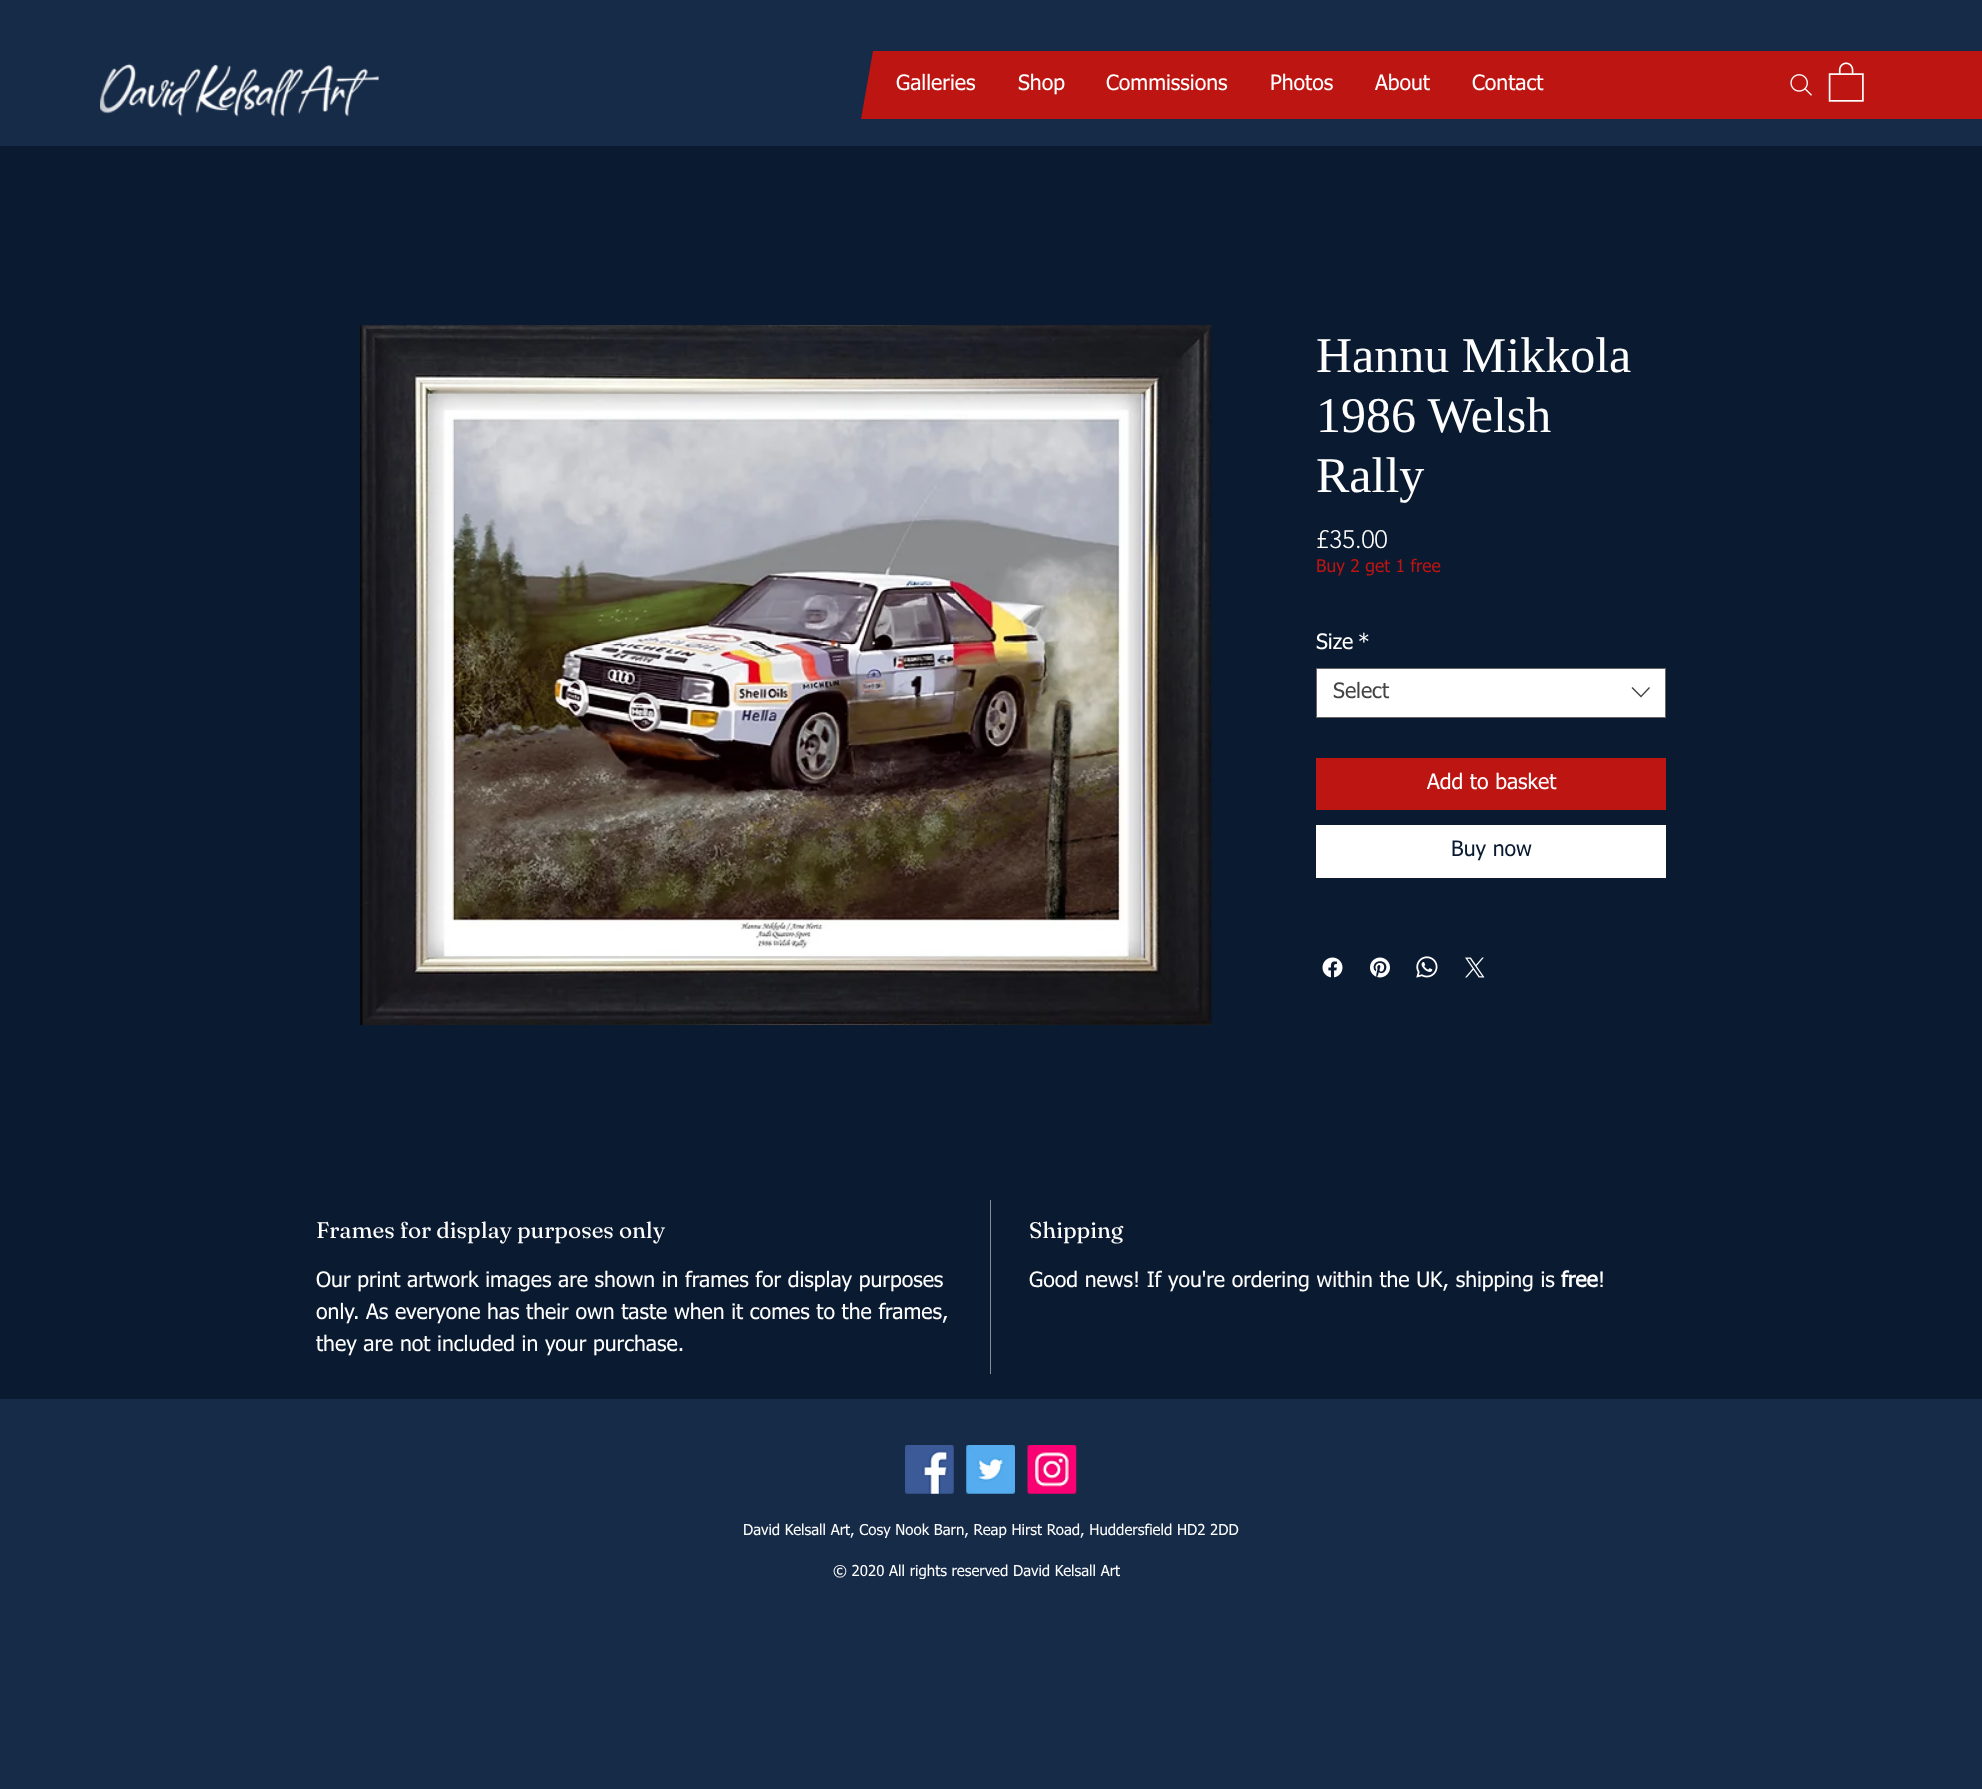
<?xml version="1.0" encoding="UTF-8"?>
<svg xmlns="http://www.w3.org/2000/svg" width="1982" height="1789">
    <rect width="100%" height="100%" fill="#162B48"/>
    <image x="100" y="63" width="279" height="54" href="img_01.png"/>
    <path d="M 885 119 H 861 L 873 51 H 896 Z" fill="#BD1512"/>
    <rect x="885" y="51" width="1097" height="68" fill="#BD1512"/>
    <text x="896" y="90" font-family="tahoma" font-size="21.25" fill="#FFFFFF">Galleries</text>
    <text x="1018" y="90" font-family="tahoma" font-size="21.25" fill="#FFFFFF">Shop</text>
    <text x="1106" y="90" font-family="tahoma" font-size="21.25" fill="#FFFFFF">Commissions</text>
    <text x="1270" y="90" font-family="tahoma" font-size="21.25" fill="#FFFFFF">Photos</text>
    <text x="1375" y="90" font-family="tahoma" font-size="21.25" fill="#FFFFFF">About</text>
    <text x="1472" y="90" font-family="tahoma" font-size="21.25" fill="#FFFFFF">Contact</text>
    <image x="1790" y="74" width="22" height="22" href="img_02.png"/>
    <image x="1828" y="62" width="36" height="40" href="img_03.png"/>
    <rect x="0" y="146" width="1982" height="1253" fill="#0A1A31"/>
    <image x="360" y="325" width="852" height="700" href="img_04.png"/>
    <text font-family="Liberation Serif" font-size="50" fill="#FFFFFF">
        <tspan x="1316" y="372">Hannu Mikkola</tspan>
        <tspan x="1316" y="432">1986 Welsh</tspan>
        <tspan x="1316" y="492">Rally</tspan>
    </text>
    <text x="1316" y="548" font-family="'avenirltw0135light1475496'" font-size="25" font-weight="300" fill="#FFFFFF">£35.00</text>
    <text x="1316" y="572" font-family="tahoma" font-size="17.5" fill="#BD1512">Buy 2 get 1 free</text>
    <text x="1316" y="649" font-family="tahoma" font-size="21.25" fill="#FFFFFF">Size</text>
    <text x="1358" y="649" font-family="tahoma" font-size="21.25" fill="#FFFFFF">*</text>
    <rect x="1316.5" y="668.5" width="349" height="49" fill="#FFFFFF" stroke="#666666"/>
    <text x="1333" y="698" font-family="tahoma" font-size="21.25" fill="#444444">Select</text>
    <path d="M 1649 687 L 1650 688 L 1641 697.5 L 1631.5 688 L 1632.5 687 L 1641 695.5 Z" fill="#444444" fill-rule="evenodd"/>
    <rect x="1316" y="758" width="350" height="52" fill="#BD1512"/>
    <text x="1427" y="789" font-family="tahoma" font-size="21.25" fill="#FFFFFF">Add to basket</text>
    <rect x="1316" y="825" width="350" height="53" fill="#FFFFFF"/>
    <text x="1451" y="856" font-family="tahoma" font-size="21.25" fill="#0A1A31">Buy now</text>
    <image x="1322" y="957" width="21" height="21" href="img_05.png"/>
    <image x="1370" y="957" width="20" height="21" href="img_06.png"/>
    <image x="1416" y="956" width="22" height="22" href="img_07.png"/>
    <image x="1465" y="957" width="20" height="21" href="img_08.png"/>
    <rect x="990" y="1200" width="1" height="174" fill="#858D98"/>
    <text x="316" y="1238" font-family="Fraunces" font-size="22.5" fill="#FFFFFF">Frames for display purposes only</text>
    <text font-family="tahoma" font-size="21.25" fill="#FFFFFF">
        <tspan x="316" y="1287">Our print artwork images are shown in frames for display purposes</tspan>
        <tspan x="316" y="1319">only. As everyone has their own taste when it comes to the frames,</tspan>
        <tspan x="316" y="1351">they are not included in your purchase.</tspan>
    </text>
    <text x="1029" y="1238" font-family="Fraunces" font-size="22.5" fill="#FFFFFF">Shipping</text>
    <text x="1029" y="1287" font-family="tahoma" font-size="21.25" fill="#FFFFFF">Good news! If you're ordering within the UK, shipping is</text>
    <text x="1561" y="1287" font-family="tahoma" font-size="21.25" font-weight="700" fill="#FFFFFF">free</text>
    <text x="1598" y="1287" font-family="tahoma" font-size="21.25" fill="#FFFFFF">!</text>
    <image x="905" y="1445" width="49" height="49" href="img_09.png"/>
    <image x="966" y="1445" width="49" height="49" href="img_10.png"/>
    <image x="1027" y="1445" width="50" height="49" href="img_11.png"/>
    <text x="743" y="1535" font-family="tahoma" font-size="15" fill="#FFFFFF">David Kelsall Art, Cosy Nook Barn, Reap Hirst Road, Huddersfield HD2 2DD</text>
    <text x="833" y="1576" font-family="tahoma" font-size="15" fill="#FFFFFF">© 2020 All rights reserved David Kelsall Art</text>
</svg>
